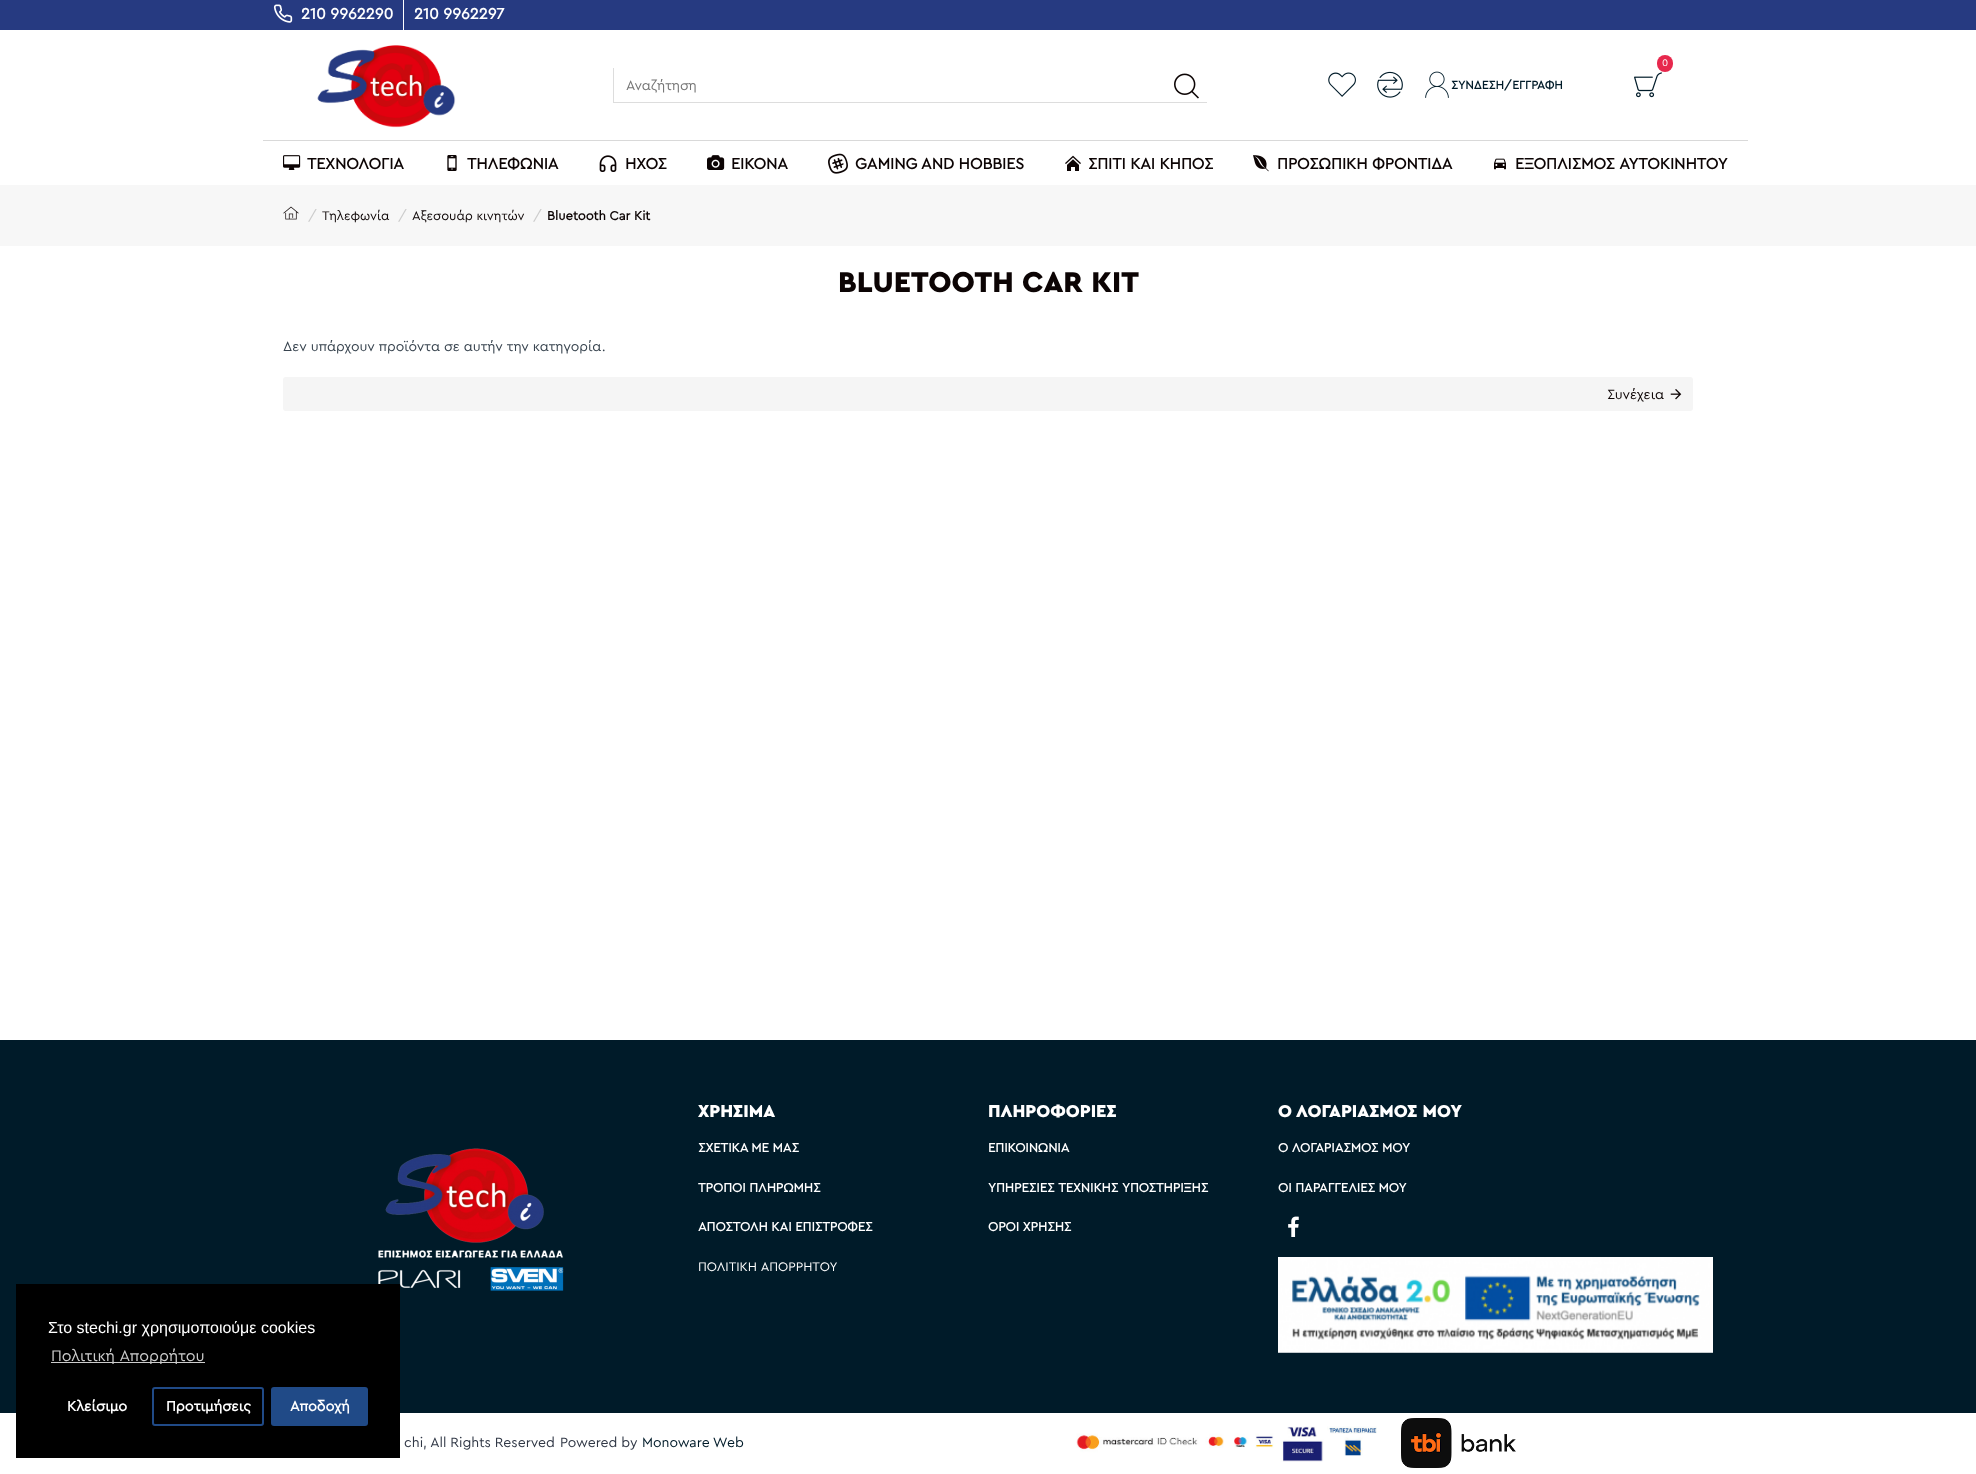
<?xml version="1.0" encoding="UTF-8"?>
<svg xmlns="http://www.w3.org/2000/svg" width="1976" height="1474">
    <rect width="100%" height="100%" fill="#FFFFFF"/>
    <rect x="0" y="1040" width="1976" height="373" fill="#001B29"/>
    <image x="378" y="1148" width="186" height="143" href="img_18.png"/>
    <rect x="16" y="1284" width="384" height="174" fill="#000000"/>
    <text x="48" y="1333" font-family="Liberation Sans" font-size="16" fill="#FFFFFF">Στο stechi.gr χρησιμοποιούμε cookies</text>
    <rect x="51" y="1362" width="154" height="1" fill="#CCCCCC"/>
    <text x="51" y="1361" font-family="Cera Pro" font-size="16" fill="#CCCCCC">Πολιτική Απορρήτου</text>
    <text x="67" y="1411" font-family="Cera Pro" font-size="14.5" font-weight="700" fill="#FFFFFF">Κλείσιμο</text>
    <rect x="153" y="1388" width="110" height="37" rx="2" fill="none" stroke="#204A87" stroke-width="2"/>
    <text x="166" y="1411" font-family="Cera Pro" font-size="14.5" font-weight="700" fill="#FFFFFF">Προτιμήσεις</text>
    <rect x="271" y="1387" width="97" height="39" rx="3" fill="#204A87"/>
    <text x="290" y="1411" font-family="Cera Pro" font-size="14.5" font-weight="700" fill="#FFFFFF">Αποδοχή</text>
    <rect x="0" y="0" width="1976" height="30" fill="#263A81"/>
    <image x="273" y="4" width="20" height="19" href="img_01.png"/>
    <text x="301" y="19" font-family="Cera Pro" font-size="16" font-weight="700" fill="#FFFFFF">210 9962290</text>
    <rect x="403" y="0" width="1" height="30" fill="#FFFFFF"/>
    <text x="414" y="19" font-family="Cera Pro" font-size="16" font-weight="700" fill="#FFFFFF">210 9962297</text>
    <image x="317" y="45" width="139" height="83" href="img_02.png"/>
    <rect x="613" y="102" width="594" height="1" fill="#DDDDDD"/>
    <rect x="613" y="68" width="1" height="35" fill="#DDDDDD"/>
    <text x="626" y="90" font-family="Cera Pro" font-size="14" fill="#757575">Αναζήτηση</text>
    <image x="1174" y="73" width="25" height="26" href="img_03.png"/>
    <rect x="1657" y="55" width="16" height="17" rx="8" fill="#E7284D"/>
    <text x="1662" y="66" font-family="Cera Pro" font-size="10" fill="#FFFFFF">0</text>
    <image x="1634" y="72" width="28" height="26" href="img_04.png"/>
    <image x="1328" y="72" width="28" height="25" href="img_05.png"/>
    <image x="1377" y="71" width="26" height="27" href="img_06.png"/>
    <image x="1425" y="71" width="24" height="27" href="img_07.png"/>
    <text x="1451" y="89" font-family="Cera Pro" font-size="12" font-weight="700" fill="#001B29">ΣΥΝΔΕΣΗ/ΕΓΓΡΑΦΗ</text>
    <rect x="263" y="140" width="1485" height="1" fill="#D9D9D9"/>
    <image x="283" y="155" width="18" height="15" href="img_08.png"/>
    <text x="307" y="169" font-family="Cera Pro" font-size="16" font-weight="700" fill="#0C0404">ΤΕΧΝΟΛΟΓΙΑ</text>
    <image x="447" y="155" width="10" height="16" href="img_09.png"/>
    <text x="467" y="169" font-family="Cera Pro" font-size="16" font-weight="700" fill="#0C0404">ΤΗΛΕΦΩΝΙΑ</text>
    <image x="599" y="155" width="18" height="17" href="img_10.png"/>
    <text x="625" y="169" font-family="Cera Pro" font-size="16" font-weight="700" fill="#0C0404">ΗΧΟΣ</text>
    <image x="707" y="155" width="18" height="15" href="img_11.png"/>
    <text x="731" y="169" font-family="Cera Pro" font-size="16" font-weight="700" fill="#0C0404">ΕΙΚΟΝΑ</text>
    <image x="828" y="153" width="20" height="21" href="img_12.png"/>
    <text x="855" y="169" font-family="Cera Pro" font-size="16" font-weight="700" fill="#0C0404">GAMING AND HOBBIES</text>
    <image x="1065" y="155" width="16" height="16" href="img_13.png"/>
    <text x="1088" y="169" font-family="Cera Pro" font-size="16" font-weight="700" fill="#0C0404">ΣΠΙΤΙ ΚΑΙ ΚΗΠΟΣ</text>
    <image x="1253" y="155" width="16" height="17" href="img_14.png"/>
    <text x="1277" y="169" font-family="Cera Pro" font-size="16" font-weight="700" fill="#0C0404">ΠΡΟΣΩΠΙΚΗ ΦΡΟΝΤΙΔΑ</text>
    <image x="1494" y="158" width="12" height="12" href="img_15.png"/>
    <text x="1515" y="169" font-family="Cera Pro" font-size="16" font-weight="700" fill="#0C0404">ΕΞΟΠΛΙΣΜΟΣ ΑΥΤΟΚΙΝΗΤΟΥ</text>
    <rect x="0" y="185" width="1976" height="61" fill="#F7F7F7"/>
    <image x="283" y="206" width="16" height="14" href="img_16.png"/>
    <text x="308" y="220" font-family="Cera Pro" font-size="14" fill="#CCCCCC">/</text>
    <text x="322" y="220" font-family="Cera Pro" font-size="13" fill="#0C0404">Τηλεφωνία</text>
    <text x="398" y="220" font-family="Cera Pro" font-size="14" fill="#CCCCCC">/</text>
    <text x="412" y="220" font-family="Cera Pro" font-size="13" fill="#0C0404">Αξεσουάρ κινητών</text>
    <text x="533" y="220" font-family="Cera Pro" font-size="14" fill="#CCCCCC">/</text>
    <text x="547" y="220" font-family="Cera Pro" font-size="13" font-weight="700" fill="#0C0404">Bluetooth Car Kit</text>
    <text x="838" y="292" font-family="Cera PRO" font-size="30" font-weight="900" fill="#0C0404">BLUETOOTH CAR KIT</text>
    <text x="283" y="351" font-family="Cera Pro" font-size="14" fill="#38444F">Δεν υπάρχουν προϊόντα σε αυτήν την κατηγορία.</text>
    <rect x="283" y="377" width="1410" height="34" rx="3" fill="#F5F5F5"/>
    <text x="1607" y="399" font-family="Cera Pro" font-size="14" fill="#0C0404">Συνέχεια</text>
    <image x="1670" y="389" width="12" height="11" href="img_17.png"/>
    <text x="698" y="1117" font-family="Cera PRO" font-size="18" font-weight="900" fill="#FFFFFF">ΧΡΗΣΙΜΑ</text>
    <text x="698" y="1152" font-family="Cera Pro" font-size="13" font-weight="700" fill="#FFFFFF">ΣΧΕΤΙΚΑ ΜΕ ΜΑΣ</text>
    <text x="698" y="1192" font-family="Cera Pro" font-size="13" font-weight="700" fill="#FFFFFF">ΤΡΟΠΟΙ ΠΛΗΡΩΜΗΣ</text>
    <text x="698" y="1231" font-family="Cera Pro" font-size="13" font-weight="700" fill="#FFFFFF">ΑΠΟΣΤΟΛΗ ΚΑΙ ΕΠΙΣΤΡΟΦΕΣ</text>
    <text x="698" y="1271" font-family="Cera Pro" font-size="13" fill="#FFFFFF">ΠΟΛΙΤΙΚΗ ΑΠΟΡΡΗΤΟΥ</text>
    <text x="988" y="1117" font-family="Cera PRO" font-size="18" font-weight="900" fill="#FFFFFF">ΠΛΗΡΟΦΟΡΙΕΣ</text>
    <text x="988" y="1152" font-family="Cera Pro" font-size="13" font-weight="700" fill="#FFFFFF">ΕΠΙΚΟΙΝΩΝΙΑ</text>
    <text x="988" y="1192" font-family="Cera Pro" font-size="13" font-weight="700" fill="#FFFFFF">ΥΠΗΡΕΣΙΕΣ ΤΕΧΝΙΚΗΣ ΥΠΟΣΤΗΡΙΞΗΣ</text>
    <text x="988" y="1231" font-family="Cera Pro" font-size="13" font-weight="700" fill="#FFFFFF">ΟΡΟΙ ΧΡΗΣΗΣ</text>
    <text x="1278" y="1117" font-family="Cera PRO" font-size="18" font-weight="900" fill="#FFFFFF">Ο ΛΟΓΑΡΙΑΣΜΟΣ ΜΟΥ</text>
    <text x="1278" y="1152" font-family="Cera Pro" font-size="13" font-weight="700" fill="#FFFFFF">Ο ΛΟΓΑΡΙΑΣΜΟΣ ΜΟΥ</text>
    <text x="1278" y="1192" font-family="Cera Pro" font-size="13" font-weight="700" fill="#FFFFFF">ΟΙ ΠΑΡΑΓΓΕΛΙΕΣ ΜΟΥ</text>
    <image x="1288" y="1216" width="11" height="21" href="img_19.png"/>
    <image x="1278" y="1257" width="435" height="96" href="img_20.png"/>
    <text x="404" y="1447" font-family="Cera Pro" font-size="14" fill="#313846">chi, All Rights Reserved</text>
    <text x="560" y="1447" font-family="Cera Pro" font-size="14" fill="#313846">Powered by</text>
    <text x="642" y="1447" font-family="Cera Pro" font-size="14" fill="#001B29">Monoware Web</text>
    <image x="1076" y="1426" width="301" height="36" href="img_21.png"/>
    <image x="1401" y="1418" width="115" height="50" href="img_22.png"/>
</svg>
